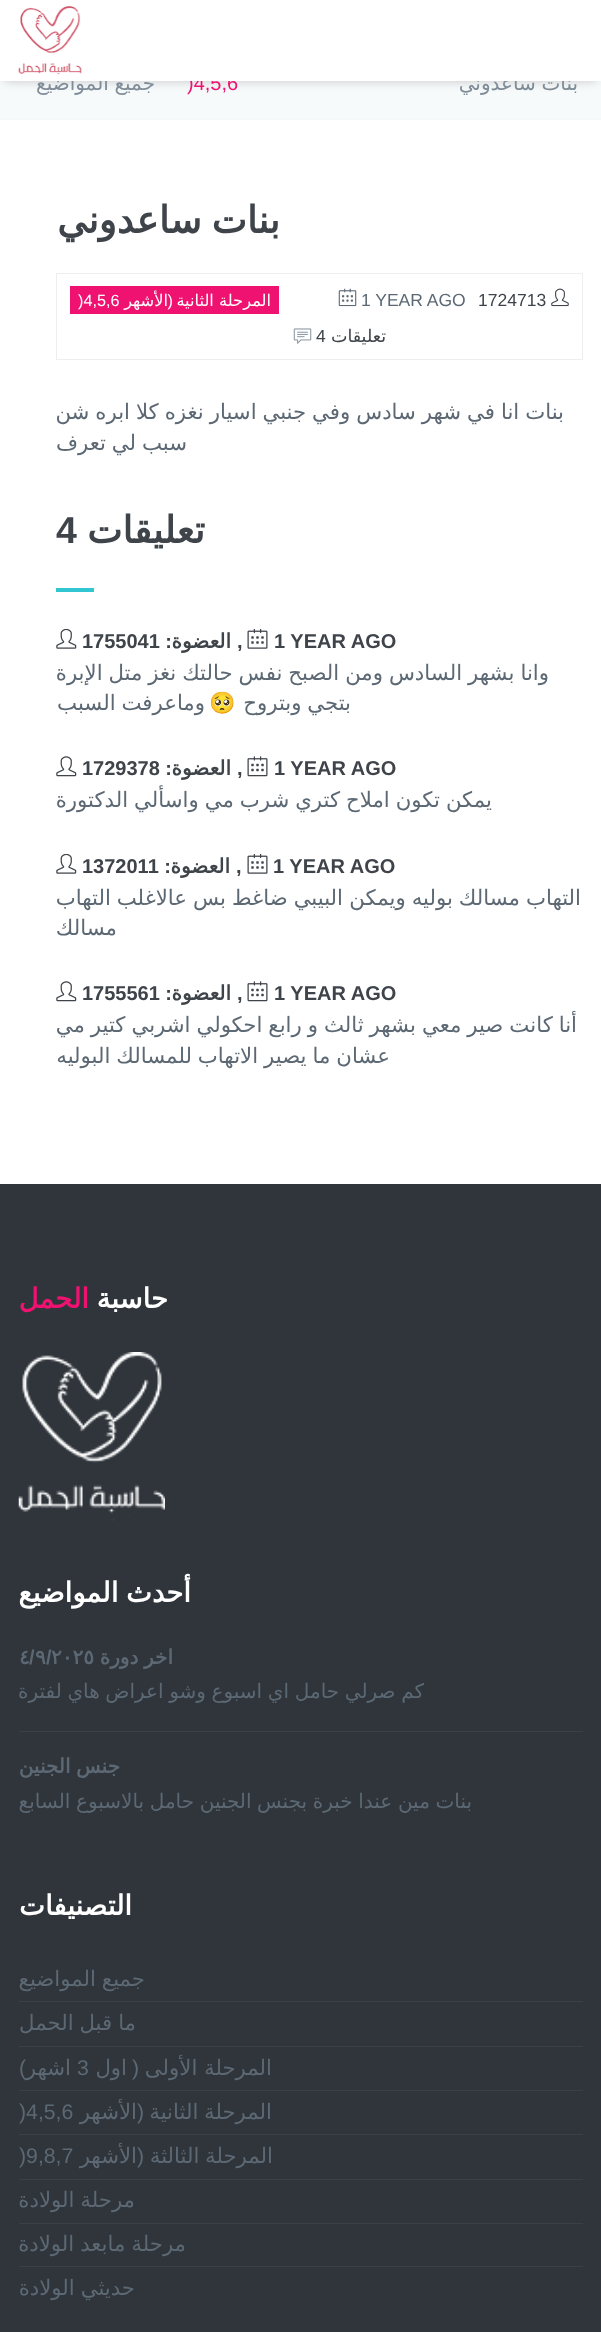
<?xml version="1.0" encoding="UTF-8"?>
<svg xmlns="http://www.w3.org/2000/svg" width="601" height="2332">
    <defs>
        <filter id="blur1" x="-50%" y="-200%" width="200%" height="500%"><feGaussianBlur stdDeviation="5.5"/></filter>
        <clipPath id="clip1"><rect x="56" y="981" width="527" height="90"/></clipPath>
    </defs>
    <rect width="100%" height="100%" fill="#FFFFFF"/>
    <rect x="0" y="81" width="601" height="38" fill="#F7FAFB"/>
    <rect x="5" y="9" width="591" height="71" fill="#000000" fill-opacity="0.25" filter="url(#blur1)"/>
    <text x="578" y="90" word-spacing="-0.75" font-family="DejaVu Sans" font-size="20" direction="rtl" fill="#7F8C97">بنات ساعدوني</text>
    <text x="187" y="90" font-family="Liberation Sans" font-size="20" fill="#EF1271">)4,5,6</text>
    <text x="155" y="90" word-spacing="-0.75" font-family="DejaVu Sans" font-size="20" direction="rtl" fill="#7F8C97">جميع المواضيع</text>
    <rect x="0" y="0" width="601" height="81" fill="#FFFFFF"/>
    <image x="18" y="6" width="64" height="69" href="img_01.png"/>
    <rect x="0" y="119" width="601" height="1" fill="#F4F8F9"/>
    <text x="280" y="233" word-spacing="-2" font-family="DejaVu Sans" font-size="37.5" font-weight="700" direction="rtl" fill="#3F444A">بنات ساعدوني</text>
    <rect x="56.5" y="273.5" width="526" height="86" fill="none" stroke="#EEEEEE"/>
    <image x="551" y="288" width="18" height="19" href="img_02.png"/>
    <text x="478" y="306" font-family="Liberation Sans" font-size="17.5" fill="#3F444A">1724713</text>
    <text x="361" y="306" font-family="Liberation Sans" font-size="17.5" fill="#5C6873">1 YEAR AGO</text>
    <image x="338" y="288" width="19" height="19" href="img_03.png"/>
    <rect x="70" y="286" width="209" height="28" fill="#EF1271"/>
    <text x="271" y="306" font-family="DejaVu Sans" font-size="16.25" direction="rtl" fill="#FFFFFF">المرحلة الثانية</text>
    <text x="173" y="306" font-family="Liberation Sans" font-size="16.25" direction="rtl" fill="#FFFFFF">(</text>
    <text x="168" y="306" font-family="DejaVu Sans" font-size="16.25" direction="rtl" fill="#FFFFFF">الأشهر</text>
    <text x="78" y="306" font-family="Liberation Sans" font-size="16.25" fill="#FFFFFF">)4,5,6</text>
    <text x="386" y="342" font-family="DejaVu Sans" font-size="17.5" direction="rtl" fill="#3F444A">تعليقات</text>
    <text x="316" y="342" font-family="Liberation Sans" font-size="17.5" fill="#3F444A">4</text>
    <image x="293" y="328" width="19" height="16" href="img_04.png"/>
    <text x="564" y="419" word-spacing="-0.8" font-family="DejaVu Sans" font-size="21.25" direction="rtl" fill="#5C6873">بنات انا في شهر سادس وفي جنبي اسيار نغزه كلا ابره شن</text>
    <text x="187" y="450" word-spacing="-0.8" font-family="DejaVu Sans" font-size="21.25" direction="rtl" fill="#5C6873">سبب لي تعرف</text>
    <text x="205" y="543" font-family="DejaVu Sans" font-size="37.5" font-weight="700" direction="rtl" fill="#3F444A">تعليقات</text>
    <text x="56" y="543" font-family="Liberation Sans" font-size="37.5" font-weight="700" fill="#3F444A">4</text>
    <rect x="56" y="588" width="38" height="4" fill="#32C5D2"/>
    <text x="274" y="648" font-family="Liberation Sans" font-size="20" font-weight="700" fill="#3F444A">1 YEAR AGO</text>
    <image x="247" y="629" width="21" height="20" href="img_05.png"/>
    <text x="237" y="648" font-family="Liberation Sans" font-size="20" font-weight="700" fill="#3F444A">,</text>
    <text x="231" y="648" font-family="DejaVu Sans" font-size="20" font-weight="700" direction="rtl" fill="#3F444A">العضوة</text>
    <text x="172" y="648" font-family="Liberation Sans" font-size="20" font-weight="700" direction="rtl" fill="#3F444A">:</text>
    <text x="82" y="648" font-family="Liberation Sans" font-size="20" font-weight="700" fill="#3F444A">1755041</text>
    <image x="56" y="629" width="21" height="20" href="img_06.png"/>
    <text x="549" y="680" word-spacing="-0.8" font-family="DejaVu Sans" font-size="21.25" direction="rtl" fill="#5C6873">وانا بشهر السادس ومن الصبح نفس حالتك نغز متل الإبرة</text>
    <text x="351" y="710" word-spacing="-1" font-family="DejaVu Sans" font-size="21.25" direction="rtl" fill="#5C6873">بتجي وبتروح</text>
    <text x="236" y="710" font-family="Noto Color Emoji" font-size="21.25" direction="rtl" fill="#5C6873">🥺</text>
    <text x="205" y="710" word-spacing="-1" font-family="DejaVu Sans" font-size="21.25" direction="rtl" fill="#5C6873">وماعرفت السبب</text>
    <text x="274" y="775" font-family="Liberation Sans" font-size="20" font-weight="700" fill="#3F444A">1 YEAR AGO</text>
    <image x="247" y="756" width="21" height="21" href="img_07.png"/>
    <text x="237" y="775" font-family="Liberation Sans" font-size="20" font-weight="700" fill="#3F444A">,</text>
    <text x="231" y="775" font-family="DejaVu Sans" font-size="20" font-weight="700" direction="rtl" fill="#3F444A">العضوة</text>
    <text x="172" y="775" font-family="Liberation Sans" font-size="20" font-weight="700" direction="rtl" fill="#3F444A">:</text>
    <text x="82" y="775" font-family="Liberation Sans" font-size="20" font-weight="700" fill="#3F444A">1729378</text>
    <image x="56" y="756" width="21" height="21" href="img_08.png"/>
    <text x="492" y="807" word-spacing="-0.8" font-family="DejaVu Sans" font-size="21.25" direction="rtl" fill="#5C6873">يمكن تكون املاح كتري شرب مي واسألي الدكتورة</text>
    <text x="273" y="873" font-family="Liberation Sans" font-size="20" font-weight="700" fill="#3F444A">1 YEAR AGO</text>
    <image x="247" y="854" width="21" height="20" href="img_05.png"/>
    <text x="236" y="873" font-family="Liberation Sans" font-size="20" font-weight="700" fill="#3F444A">,</text>
    <text x="230" y="873" font-family="DejaVu Sans" font-size="20" font-weight="700" direction="rtl" fill="#3F444A">العضوة</text>
    <text x="171" y="873" font-family="Liberation Sans" font-size="20" font-weight="700" direction="rtl" fill="#3F444A">:</text>
    <text x="82" y="873" font-family="Liberation Sans" font-size="20" font-weight="700" fill="#3F444A">1372011</text>
    <image x="56" y="854" width="21" height="20" href="img_06.png"/>
    <text x="581" y="905" word-spacing="-0.8" font-family="DejaVu Sans" font-size="21.25" direction="rtl" fill="#5C6873">التهاب مسالك بوليه ويمكن</text>
    <text x="343" y="905" word-spacing="-0.8" font-family="DejaVu Sans" font-size="21.25" direction="rtl" fill="#5C6873">البيبي ضاغط</text>
    <text x="226" y="905" word-spacing="-0.8" font-family="DejaVu Sans" font-size="21.25" direction="rtl" fill="#5C6873">بس عالاغلب التهاب</text>
    <text x="117" y="935" font-family="DejaVu Sans" font-size="21.25" direction="rtl" fill="#5C6873">مسالك</text>
    <text x="274" y="1000" font-family="Liberation Sans" font-size="20" font-weight="700" fill="#3F444A">1 YEAR AGO</text>
    <image x="247" y="981" width="21" height="21" href="img_07.png"/>
    <text x="237" y="1000" font-family="Liberation Sans" font-size="20" font-weight="700" fill="#3F444A">,</text>
    <text x="231" y="1000" font-family="DejaVu Sans" font-size="20" font-weight="700" direction="rtl" fill="#3F444A">العضوة</text>
    <text x="172" y="1000" font-family="Liberation Sans" font-size="20" font-weight="700" direction="rtl" fill="#3F444A">:</text>
    <text x="82" y="1000" font-family="Liberation Sans" font-size="20" font-weight="700" fill="#3F444A">1755561</text>
    <image x="56" y="981" width="21" height="21" href="img_08.png"/>
    <g clip-path="url(#clip1)">
        <text x="577" y="1032" word-spacing="-0.8" font-family="DejaVu Sans" font-size="21.25" direction="rtl" fill="#5C6873">أنا كانت صير معي بشهر ثالث و رابع احكولي اشربي كتير مي</text>
    </g>
    <text x="390" y="1063" word-spacing="-0.8" font-family="DejaVu Sans" font-size="21.25" direction="rtl" fill="#5C6873">عشان ما يصير الاتهاب للمسالك البوليه</text>
    <rect x="0" y="1184" width="601" height="1148" fill="#2F353B"/>
    <text x="168" y="1308" font-family="DejaVu Sans" font-size="27.5" font-weight="700" direction="rtl" fill="#FFFFFF">حاسبة</text>
    <text x="89" y="1308" font-family="DejaVu Sans" font-size="27.5" font-weight="700" direction="rtl" fill="#EF1271">الحمل</text>
    <image x="18" y="1352" width="147" height="169" href="img_09.png"/>
    <text x="191" y="1602" word-spacing="-1" font-family="DejaVu Sans" font-size="27.5" font-weight="700" direction="rtl" fill="#FFFFFF">أحدث المواضيع</text>
    <rect x="19" y="1731" width="564" height="1" fill="#394047"/>
    <text x="173" y="1664" word-spacing="-0.75" font-family="DejaVu Sans" font-size="20" font-weight="700" direction="rtl" fill="#5C6873">اخر دورة</text>
    <text x="51" y="1664" font-family="DejaVu Sans" font-size="20" font-weight="700" fill="#5C6873">٢٠٢٥</text>
    <text x="46" y="1664" font-family="Liberation Sans" font-size="20" font-weight="700" fill="#5C6873">/</text>
    <text x="35" y="1664" font-family="DejaVu Sans" font-size="20" font-weight="700" fill="#5C6873">٩</text>
    <text x="29" y="1664" font-family="Liberation Sans" font-size="20" font-weight="700" fill="#5C6873">/</text>
    <text x="19" y="1664" font-family="DejaVu Sans" font-size="20" font-weight="700" fill="#5C6873">٤</text>
    <text x="424" y="1698" word-spacing="-0.75" font-family="DejaVu Sans" font-size="20" direction="rtl" fill="#5C6873">كم صرلي حامل</text>
    <text x="289" y="1698" word-spacing="-0.75" font-family="DejaVu Sans" font-size="20" direction="rtl" fill="#5C6873">اي اسبوع وشو اعراض هاي لفترة</text>
    <text x="120" y="1773" word-spacing="-0.75" font-family="DejaVu Sans" font-size="20" font-weight="700" direction="rtl" fill="#5C6873">جنس الجنين</text>
    <text x="472" y="1808" word-spacing="-0.75" font-family="DejaVu Sans" font-size="20" direction="rtl" fill="#5C6873">بنات مين عندا خبرة بجنس الجنين حامل بالاسبوع السابع</text>
    <text x="132" y="1915" font-family="DejaVu Sans" font-size="27.5" font-weight="700" direction="rtl" fill="#FFFFFF">التصنيفات</text>
    <rect x="19" y="2001" width="564" height="1" fill="#394047"/>
    <text x="145" y="1986" word-spacing="-0.8" font-family="DejaVu Sans" font-size="21.25" direction="rtl" fill="#5C6873">جميع المواضيع</text>
    <rect x="19" y="2046" width="564" height="1" fill="#394047"/>
    <text x="136" y="2030" word-spacing="-0.8" font-family="DejaVu Sans" font-size="21.25" direction="rtl" fill="#5C6873">ما قبل الحمل</text>
    <rect x="19" y="2090" width="564" height="1" fill="#394047"/>
    <text x="272" y="2075" font-family="DejaVu Sans" font-size="21.25" direction="rtl" fill="#5C6873">المرحلة الأولى</text>
    <text x="139" y="2075" font-family="Liberation Sans" font-size="21.25" direction="rtl" fill="#5C6873">(</text>
    <text x="127" y="2075" font-family="DejaVu Sans" font-size="21.25" direction="rtl" fill="#5C6873">اول</text>
    <text x="77" y="2075" font-family="Liberation Sans" font-size="21.25" fill="#5C6873">3</text>
    <text x="26" y="2075" font-family="Liberation Sans" font-size="21.25" direction="rtl" fill="#5C6873">)</text>
    <text x="71" y="2075" font-family="DejaVu Sans" font-size="21.25" direction="rtl" fill="#5C6873">اشهر</text>
    <rect x="19" y="2134" width="564" height="1" fill="#394047"/>
    <text x="272" y="2119" word-spacing="-1" font-family="DejaVu Sans" font-size="21.25" direction="rtl" fill="#5C6873">المرحلة الثانية</text>
    <text x="144" y="2119" font-family="Liberation Sans" font-size="21.25" direction="rtl" fill="#5C6873">(</text>
    <text x="137" y="2119" font-family="DejaVu Sans" font-size="21.25" direction="rtl" fill="#5C6873">الأشهر</text>
    <text x="19" y="2119" font-family="Liberation Sans" font-size="21.25" fill="#5C6873">)4,5,6</text>
    <rect x="19" y="2179" width="564" height="1" fill="#394047"/>
    <text x="273" y="2163" word-spacing="-1" font-family="DejaVu Sans" font-size="21.25" direction="rtl" fill="#5C6873">المرحلة الثالثة</text>
    <text x="144" y="2163" font-family="Liberation Sans" font-size="21.25" direction="rtl" fill="#5C6873">(</text>
    <text x="137" y="2163" font-family="DejaVu Sans" font-size="21.25" direction="rtl" fill="#5C6873">الأشهر</text>
    <text x="19" y="2163" font-family="Liberation Sans" font-size="21.25" fill="#5C6873">)9,8,7</text>
    <rect x="19" y="2223" width="564" height="1" fill="#394047"/>
    <text x="135" y="2207" word-spacing="-0.8" font-family="DejaVu Sans" font-size="21.25" direction="rtl" fill="#5C6873">مرحلة الولادة</text>
    <rect x="19" y="2266" width="564" height="1" fill="#394047"/>
    <text x="186" y="2251" word-spacing="-0.8" font-family="DejaVu Sans" font-size="21.25" direction="rtl" fill="#5C6873">مرحلة مابعد الولادة</text>
    <text x="135" y="2295" word-spacing="-0.8" font-family="DejaVu Sans" font-size="21.25" direction="rtl" fill="#5C6873">حديثي الولادة</text>
</svg>
